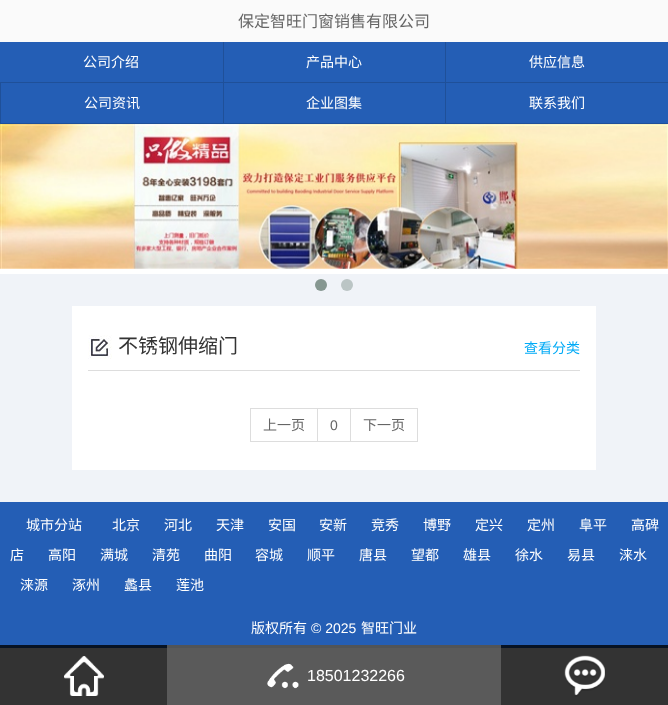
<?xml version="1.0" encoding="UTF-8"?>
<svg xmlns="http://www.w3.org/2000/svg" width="668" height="705">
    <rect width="100%" height="100%" fill="#FFFFFF"/>
    <rect x="0" y="648" width="668" height="57" fill="#333333"/>
    <rect x="167" y="648" width="334" height="57" fill="#5A5A5A"/>
    <rect x="0" y="0" width="668" height="42" fill="#FAFAFA"/>
    <text x="238" y="27" font-family="Noto Sans CJK SC" font-size="16" fill="#666666">保定智旺门窗销售有限公司</text>
    <rect x="0" y="42" width="668" height="81" fill="#245EB5"/>
    <rect x="0" y="82" width="668" height="1" fill="#1F5099"/>
    <text x="83" y="67" font-family="Noto Sans CJK SC" font-size="14" fill="#FFFFFF">公司介绍</text>
    <rect x="223" y="42" width="1" height="41" fill="#1F5099"/>
    <text x="306" y="67" font-family="Noto Sans CJK SC" font-size="14" fill="#FFFFFF">产品中心</text>
    <rect x="445" y="42" width="1" height="41" fill="#1F5099"/>
    <text x="529" y="67" font-family="Noto Sans CJK SC" font-size="14" fill="#FFFFFF">供应信息</text>
    <rect x="0" y="123" width="668" height="1" fill="#1F5099"/>
    <rect x="0" y="83" width="1" height="41" fill="#1F5099"/>
    <text x="84" y="108" font-family="Noto Sans CJK SC" font-size="14" fill="#FFFFFF">公司资讯</text>
    <rect x="223" y="83" width="1" height="41" fill="#1F5099"/>
    <text x="306" y="108" font-family="Noto Sans CJK SC" font-size="14" fill="#FFFFFF">企业图集</text>
    <rect x="445" y="83" width="1" height="41" fill="#1F5099"/>
    <text x="529" y="108" font-family="Noto Sans CJK SC" font-size="14" fill="#FFFFFF">联系我们</text>
    <image x="0" y="124" width="668" height="145" href="img_01.png"/>
    <rect x="0" y="274" width="668" height="228" fill="#F0F3F8"/>
    <circle cx="321" cy="285" r="6" fill="#869791"/>
    <circle cx="347" cy="285" r="6" fill="#BBC5C5"/>
    <rect x="72" y="306" width="524" height="164" fill="#FFFFFF"/>
    <rect x="88" y="370" width="492" height="1" fill="#DDDDDD"/>
    <image x="88" y="335" width="24" height="24" href="img_02.png"/>
    <text x="118" y="353" font-family="Noto Sans CJK SC" font-size="20" fill="#333333">不锈钢伸缩门</text>
    <text x="524" y="353" font-family="Noto Sans CJK SC" font-size="14" fill="#00AAF6">查看分类</text>
    <rect x="250.5" y="408.5" width="67" height="33" fill="none" stroke="#DDDDDD"/>
    <text x="263" y="430" font-family="Noto Sans CJK SC" font-size="14" fill="#666666">上一页</text>
    <rect x="318" y="408" width="100" height="1" fill="#DDDDDD"/>
    <rect x="350" y="408" width="1" height="34" fill="#DDDDDD"/>
    <rect x="318" y="441" width="33" height="1" fill="#DDDDDD"/>
    <text x="330" y="430" font-family="Liberation Sans" font-size="14" fill="#666666">0</text>
    <rect x="417" y="408" width="1" height="34" fill="#DDDDDD"/>
    <rect x="351" y="441" width="67" height="1" fill="#DDDDDD"/>
    <text x="363" y="430" font-family="Noto Sans CJK SC" font-size="14" fill="#666666">下一页</text>
    <rect x="0" y="502" width="668" height="143" fill="#245EB5"/>
    <text x="26" y="530" font-family="Noto Sans CJK SC" font-size="14" fill="#FFFFFF">城市分站</text>
    <text x="112" y="530" font-family="Noto Sans CJK SC" font-size="14" fill="#FFFFFF">北京</text>
    <text x="164" y="530" font-family="Noto Sans CJK SC" font-size="14" fill="#FFFFFF">河北</text>
    <text x="216" y="530" font-family="Noto Sans CJK SC" font-size="14" fill="#FFFFFF">天津</text>
    <text x="268" y="530" font-family="Noto Sans CJK SC" font-size="14" fill="#FFFFFF">安国</text>
    <text x="319" y="530" font-family="Noto Sans CJK SC" font-size="14" fill="#FFFFFF">安新</text>
    <text x="371" y="530" font-family="Noto Sans CJK SC" font-size="14" fill="#FFFFFF">竞秀</text>
    <text x="423" y="530" font-family="Noto Sans CJK SC" font-size="14" fill="#FFFFFF">博野</text>
    <text x="475" y="530" font-family="Noto Sans CJK SC" font-size="14" fill="#FFFFFF">定兴</text>
    <text x="527" y="530" font-family="Noto Sans CJK SC" font-size="14" fill="#FFFFFF">定州</text>
    <text x="579" y="530" font-family="Noto Sans CJK SC" font-size="14" fill="#FFFFFF">阜平</text>
    <text x="631" y="530" font-family="Noto Sans CJK SC" font-size="14" fill="#FFFFFF">高碑</text>
    <text x="10" y="560" font-family="Noto Sans CJK SC" font-size="14" fill="#FFFFFF">店</text>
    <text x="48" y="560" font-family="Noto Sans CJK SC" font-size="14" fill="#FFFFFF">高阳</text>
    <text x="100" y="560" font-family="Noto Sans CJK SC" font-size="14" fill="#FFFFFF">满城</text>
    <text x="152" y="560" font-family="Noto Sans CJK SC" font-size="14" fill="#FFFFFF">清苑</text>
    <text x="204" y="560" font-family="Noto Sans CJK SC" font-size="14" fill="#FFFFFF">曲阳</text>
    <text x="255" y="560" font-family="Noto Sans CJK SC" font-size="14" fill="#FFFFFF">容城</text>
    <text x="307" y="560" font-family="Noto Sans CJK SC" font-size="14" fill="#FFFFFF">顺平</text>
    <text x="359" y="560" font-family="Noto Sans CJK SC" font-size="14" fill="#FFFFFF">唐县</text>
    <text x="411" y="560" font-family="Noto Sans CJK SC" font-size="14" fill="#FFFFFF">望都</text>
    <text x="463" y="560" font-family="Noto Sans CJK SC" font-size="14" fill="#FFFFFF">雄县</text>
    <text x="515" y="560" font-family="Noto Sans CJK SC" font-size="14" fill="#FFFFFF">徐水</text>
    <text x="567" y="560" font-family="Noto Sans CJK SC" font-size="14" fill="#FFFFFF">易县</text>
    <text x="619" y="560" font-family="Noto Sans CJK SC" font-size="14" fill="#FFFFFF">涞水</text>
    <text x="20" y="590" font-family="Noto Sans CJK SC" font-size="14" fill="#FFFFFF">涞源</text>
    <text x="72" y="590" font-family="Noto Sans CJK SC" font-size="14" fill="#FFFFFF">涿州</text>
    <text x="124" y="590" font-family="Noto Sans CJK SC" font-size="14" fill="#FFFFFF">蠡县</text>
    <text x="176" y="590" font-family="Noto Sans CJK SC" font-size="14" fill="#FFFFFF">莲池</text>
    <rect x="0" y="645" width="668" height="3" fill="#071324"/>
    <rect x="167" y="645" width="334" height="3" fill="#515457"/>
    <text x="251" y="633" font-family="Noto Sans CJK SC" font-size="14" fill="#FFFFFF">版权所有</text>
    <text x="311" y="633" font-family="Liberation Sans" font-size="14" fill="#FFFFFF">© 2025</text>
    <text x="361" y="633" font-family="Noto Sans CJK SC" font-size="14" fill="#FFFFFF">智旺门业</text>
    <image x="64" y="656" width="40" height="40" href="img_03.png"/>
    <image x="267" y="663" width="32" height="26" href="img_04.png"/>
    <text x="307" y="681" font-family="Liberation Sans" font-size="16" fill="#FFFFFF">18501232266</text>
    <image x="564" y="655" width="41" height="42" href="img_05.png"/>
</svg>
